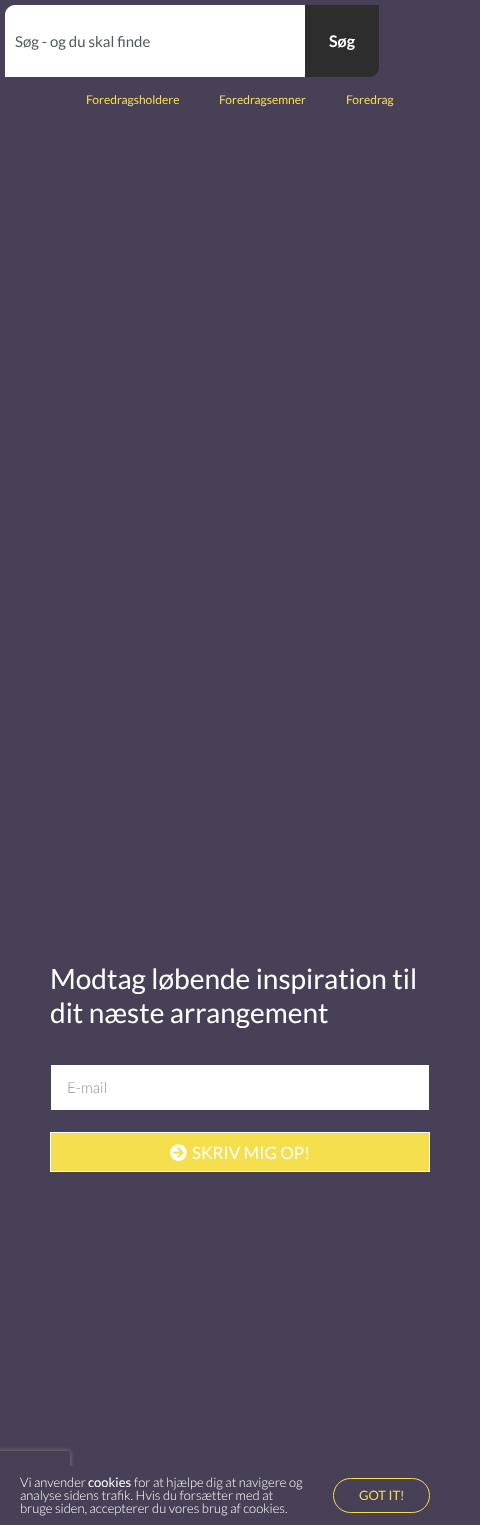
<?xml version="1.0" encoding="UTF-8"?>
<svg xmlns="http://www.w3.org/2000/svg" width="480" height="1525">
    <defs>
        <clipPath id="clip1"><path d="M 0 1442 H 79 V 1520 H 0 Z M -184 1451 H 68 C 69 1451 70 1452 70 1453 V 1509 C 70 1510 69 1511 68 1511 H -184 C -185 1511 -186 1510 -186 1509 V 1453 C -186 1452 -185 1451 -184 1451 Z" clip-rule="evenodd"/></clipPath>
        <filter id="blur1" x="-50%" y="-200%" width="200%" height="500%"><feGaussianBlur stdDeviation="2.5"/></filter>
    </defs>
    <rect width="100%" height="100%" fill="#474056"/>
    <path d="M 15 5 H 305 V 77 H 5 V 15 C 5 9.5 9.5 5 15 5 Z" fill="#FFFFFF"/>
    <text x="15" y="47" font-family="Lato" font-size="15" fill="#515962">Søg - og du skal finde</text>
    <path d="M 305 5 H 379 V 67 C 379 72.5 374.5 77 369 77 H 305 Z" fill="#2D2D2D"/>
    <text x="329" y="47" font-family="Lato" font-size="16" font-weight="700" fill="#FFFFFF">Søg</text>
    <text x="86" y="104" font-family="Lato" font-size="12" fill="#F5DF4D">Foredragsholdere</text>
    <text x="219" y="104" font-family="Lato" font-size="12" fill="#F5DF4D">Foredragsemner</text>
    <text x="346" y="104" font-family="Lato" font-size="12" fill="#F5DF4D">Foredrag</text>
    <text font-family="Lato" font-size="28" fill="#FFFFFF">
        <tspan x="50" y="989">Modtag løbende inspiration til</tspan>
        <tspan x="50" y="1023">dit næste arrangement</tspan>
    </text>
    <rect x="51" y="1065" width="378" height="45" fill="#FFFFFF"/>
    <text x="67" y="1093" font-family="Lato" font-size="15" font-weight="300" fill="#918C9A">E-mail</text>
    <rect x="50.5" y="1132.5" width="379" height="39" fill="#F5DF4D" stroke="#FFFFFF"/>
    <image x="170" y="1144" width="17" height="17" href="img_01.png"/>
    <text x="192" y="1159" font-family="Lato" font-size="17" fill="#FFFFFF">SKRIV MIG OP!</text>
    <g clip-path="url(#clip1)">
        <rect x="-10" y="1451" width="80" height="60" rx="2" fill="#808080" filter="url(#blur1)"/>
    </g>
    <rect x="0" y="1466" width="74" height="49" fill="#474056"/>
    <text x="20" y="1487" font-family="Lato" font-size="13" font-weight="300" fill="#FFFFFF">Vi anvender</text>
    <text x="88" y="1487" font-family="Lato" font-size="13" fill="#FFFFFF">cookies</text>
    <text x="134" y="1487" font-family="Lato" font-size="13" font-weight="300" fill="#FFFFFF">for at hjælpe dig at navigere og</text>
    <text font-family="Lato" font-size="13" font-weight="300" fill="#FFFFFF">
        <tspan x="20" y="1500">analyse sidens trafik. Hvis du forsætter med at</tspan>
        <tspan x="20" y="1513">bruge siden, accepterer du vores brug af cookies.</tspan>
    </text>
    <rect x="333.5" y="1478.5" width="96" height="34" rx="17" fill="none" stroke="#F5DF4D"/>
    <text x="359" y="1500" font-family="Lato" font-size="13" fill="#F5DF4D">GOT IT!</text>
</svg>
